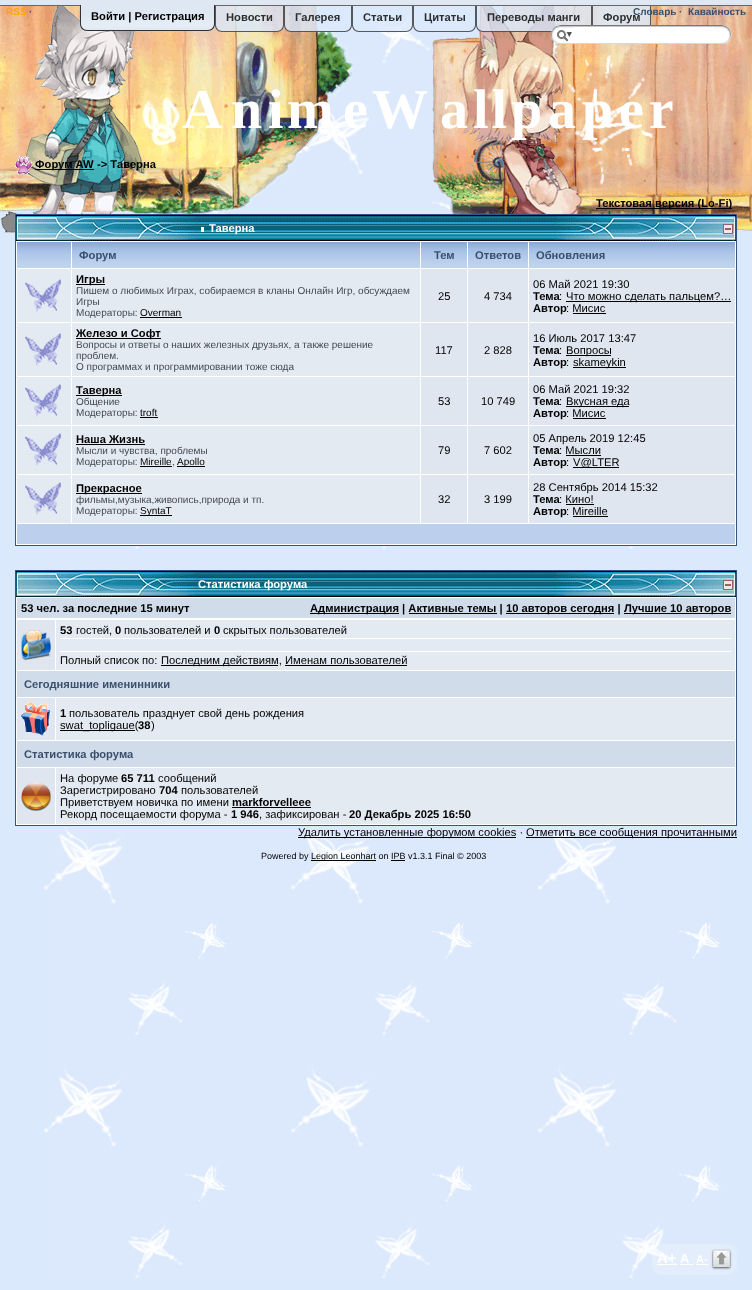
<?xml version="1.0" encoding="UTF-8"?>
<svg xmlns="http://www.w3.org/2000/svg" width="752" height="1290">
    <rect width="100%" height="100%" fill="#DBE9FC"/>
    <image x="44" y="9" width="677" height="1269" href="img_01.png"/>
    <image x="432" y="6" width="320" height="225" href="img_02.png"/>
    <image x="0" y="6" width="353" height="227" href="img_03.png"/>
    <rect x="0" y="0" width="752" height="5" fill="#DFE7F2"/>
    <rect x="0" y="5" width="752" height="1" fill="#666666"/>
    <text x="6" y="15" font-family="Liberation Sans" font-size="10" font-weight="700" fill="#FFA500">RSS</text>
    <text x="29" y="15" font-family="Liberation Sans" font-size="10" font-weight="700" fill="#3A4F6C">·</text>
    <rect x="592" y="6" width="59" height="19" fill="#DBE9FC" fill-opacity="0.8"/>
    <path d="M 592 6 H 651 V 25 C 651 29 648 32 644 32 H 599 C 595 32 592 29 592 25 Z M 593 6 H 650 V 25 C 650 28 647 31 644 31 H 599 C 596 31 593 28 593 25 Z" fill="#333333" fill-opacity="0.8" fill-rule="evenodd"/>
    <text x="603" y="21" font-family="Liberation Sans" font-size="11.2" font-weight="700" fill="#2D2E2F">Форум</text>
    <text x="633" y="15" font-family="Liberation Sans" font-size="10" font-weight="700" fill="#3A4F6C">Словарь</text>
    <text x="679" y="15" font-family="Liberation Sans" font-size="10" font-weight="700" fill="#3A4F6C">·</text>
    <text x="688" y="15" font-family="Liberation Sans" font-size="10" font-weight="700" fill="#3A4F6C">Кавайность</text>
    <image x="80" y="5" width="135" height="26" href="img_04.png"/>
    <path d="M 80 5 H 215 V 24 C 215 28 212 31 208 31 H 87 C 83 31 80 28 80 24 Z M 81 5 H 214 V 24 C 214 27 211 30 208 30 H 87 C 84 30 81 27 81 24 Z" fill="#333333" fill-rule="evenodd"/>
    <text x="91" y="20" font-family="Liberation Sans" font-size="11.2" font-weight="700" fill="#000000">Войти | Регистрация</text>
    <path d="M 215 6 H 284 V 25 C 284 29 281 32 277 32 H 222 C 218 32 215 29 215 25 Z" fill="#DBE9FC" fill-opacity="0.8"/>
    <path d="M 215 6 H 284 V 25 C 284 29 281 32 277 32 H 222 C 218 32 215 29 215 25 Z M 216 6 H 283 V 25 C 283 28 280 31 277 31 H 222 C 219 31 216 28 216 25 Z" fill="#333333" fill-opacity="0.8" fill-rule="evenodd"/>
    <text x="226" y="21" font-family="Liberation Sans" font-size="11.2" font-weight="700" fill="#2D2E2F">Новости</text>
    <path d="M 284 6 H 352 V 25 C 352 29 349 32 345 32 H 291 C 287 32 284 29 284 25 Z" fill="#DBE9FC" fill-opacity="0.8"/>
    <path d="M 284 6 H 352 V 25 C 352 29 349 32 345 32 H 291 C 287 32 284 29 284 25 Z M 285 6 H 351 V 25 C 351 28 348 31 345 31 H 291 C 288 31 285 28 285 25 Z" fill="#333333" fill-opacity="0.8" fill-rule="evenodd"/>
    <text x="295" y="21" font-family="Liberation Sans" font-size="11.2" font-weight="700" fill="#2D2E2F">Галерея</text>
    <path d="M 352 6 H 413 V 25 C 413 29 410 32 406 32 H 359 C 355 32 352 29 352 25 Z" fill="#DBE9FC" fill-opacity="0.8"/>
    <path d="M 352 6 H 413 V 25 C 413 29 410 32 406 32 H 359 C 355 32 352 29 352 25 Z M 353 6 H 412 V 25 C 412 28 409 31 406 31 H 359 C 356 31 353 28 353 25 Z" fill="#333333" fill-opacity="0.8" fill-rule="evenodd"/>
    <text x="363" y="21" font-family="Liberation Sans" font-size="11.2" font-weight="700" fill="#2D2E2F">Статьи</text>
    <path d="M 413 6 H 476 V 25 C 476 29 473 32 469 32 H 420 C 416 32 413 29 413 25 Z" fill="#DBE9FC" fill-opacity="0.8"/>
    <path d="M 413 6 H 476 V 25 C 476 29 473 32 469 32 H 420 C 416 32 413 29 413 25 Z M 414 6 H 475 V 25 C 475 28 472 31 469 31 H 420 C 417 31 414 28 414 25 Z" fill="#333333" fill-opacity="0.8" fill-rule="evenodd"/>
    <text x="424" y="21" font-family="Liberation Sans" font-size="11.2" font-weight="700" fill="#2D2E2F">Цитаты</text>
    <path d="M 476 6 H 592 V 25 C 592 29 589 32 585 32 H 483 C 479 32 476 29 476 25 Z" fill="#DBE9FC" fill-opacity="0.8"/>
    <path d="M 476 6 H 592 V 25 C 592 29 589 32 585 32 H 483 C 479 32 476 29 476 25 Z M 477 6 H 591 V 25 C 591 28 588 31 585 31 H 483 C 480 31 477 28 477 25 Z" fill="#333333" fill-opacity="0.8" fill-rule="evenodd"/>
    <text x="487" y="21" font-family="Liberation Sans" font-size="11.2" font-weight="700" fill="#2D2E2F">Переводы манги</text>
    <image x="550" y="25" width="182" height="19" href="img_05.png"/>
    <rect x="574" y="27" width="140" height="1" fill="#FFFFFF"/>
    <image x="557" y="30" width="15" height="12" href="img_06.png"/>
    <text x="182" y="128" font-family="Liberation Serif" font-size="56" font-weight="700" letter-spacing="8" fill="#FFFFFF">A</text>
    <text x="231" y="128" font-family="Liberation Serif" font-size="56" font-weight="700" letter-spacing="6" fill="#FFFFFF">n</text>
    <text x="268" y="128" font-family="Liberation Serif" font-size="56" font-weight="700" letter-spacing="3" fill="#FFFFFF">i</text>
    <text x="287" y="128" font-family="Liberation Serif" font-size="56" font-weight="700" letter-spacing="9" fill="#FFFFFF">m</text>
    <text x="343" y="128" font-family="Liberation Serif" font-size="56" font-weight="700" letter-spacing="5" fill="#FFFFFF">e</text>
    <text x="372" y="128" font-family="Liberation Serif" font-size="56" font-weight="700" letter-spacing="11" fill="#FFFFFF">W</text>
    <text x="440" y="128" font-family="Liberation Serif" font-size="56" font-weight="700" letter-spacing="6" fill="#FFFFFF">a</text>
    <text x="473" y="128" font-family="Liberation Serif" font-size="56" font-weight="700" letter-spacing="3" fill="#FFFFFF">ll</text>
    <text x="511" y="128" font-family="Liberation Serif" font-size="56" font-weight="700" letter-spacing="6" fill="#FFFFFF">p</text>
    <text x="548" y="128" font-family="Liberation Serif" font-size="56" font-weight="700" letter-spacing="6" fill="#FFFFFF">a</text>
    <text x="582" y="128" font-family="Liberation Serif" font-size="56" font-weight="700" letter-spacing="6" fill="#FFFFFF">p</text>
    <text x="619" y="128" font-family="Liberation Serif" font-size="56" font-weight="700" letter-spacing="5" fill="#FFFFFF">er</text>
    <image x="15" y="156" width="17" height="18" href="img_07.png"/>
    <rect x="35" y="169" width="59" height="1" fill="#000000"/>
    <text x="35" y="168" font-family="Liberation Sans" font-size="11.2" font-weight="700" fill="#000000">Форум AW</text>
    <text x="97" y="168" font-family="Liberation Sans" font-size="11.2" font-weight="700" fill="#000000">-&gt; Таверна</text>
    <rect x="596" y="208" width="136" height="1" fill="#000000"/>
    <text x="596" y="207" font-family="Liberation Sans" font-size="11.2" font-weight="700" fill="#000000">Текстовая версия (Lo-Fi)</text>
    <rect x="16" y="241" width="720" height="304" fill="#FFFFFF"/>
    <rect x="15.5" y="214.5" width="721" height="331" fill="none" stroke="#345487"/>
    <image x="16" y="215" width="182" height="26" href="img_08.png"/>
    <image x="198" y="215" width="356" height="26" href="img_09.png"/>
    <rect x="201" y="227" width="3" height="5" fill="#FFFFFF"/>
    <text x="209" y="232" font-family="Liberation Sans" font-size="11.2" font-weight="700" fill="#FFFFFF">Таверна</text>
    <image x="554" y="215" width="182" height="26" href="img_10.png"/>
    <image x="723" y="224" width="10" height="10" href="img_11.png"/>
    <image x="17" y="242" width="54" height="26" href="img_12.png"/>
    <image x="72" y="242" width="348" height="26" href="img_13.png"/>
    <text x="79" y="259" font-family="Liberation Sans" font-size="11.2" font-weight="700" fill="#3A4F6C">Форум</text>
    <image x="421" y="242" width="46" height="26" href="img_14.png"/>
    <text x="434" y="259" font-family="Liberation Sans" font-size="11.2" font-weight="700" fill="#3A4F6C">Тем</text>
    <image x="468" y="242" width="60" height="26" href="img_15.png"/>
    <text x="475" y="259" font-family="Liberation Sans" font-size="11.2" font-weight="700" fill="#3A4F6C">Ответов</text>
    <image x="529" y="242" width="206" height="26" href="img_16.png"/>
    <text x="536" y="259" font-family="Liberation Sans" font-size="11.2" font-weight="700" fill="#3A4F6C">Обновления</text>
    <rect x="17" y="269" width="54" height="53" fill="#E4EAF2"/>
    <image x="25" y="279" width="36" height="33" href="img_17.png"/>
    <rect x="72" y="269" width="348" height="53" fill="#E4EAF2"/>
    <rect x="76" y="284" width="29" height="1" fill="#000000"/>
    <text x="76" y="283" font-family="Liberation Sans" font-size="11.2" font-weight="700" fill="#000000">Игры</text>
    <text font-family="Liberation Sans" font-size="10" fill="#434951">
        <tspan x="76" y="294">Пишем о любимых Играх, собираемся в кланы Онлайн Игр, обсуждаем</tspan>
        <tspan x="76" y="305">Игры</tspan>
        <tspan x="76" y="316">Модераторы:</tspan>
    </text>
    <text x="140" y="316" font-family="Liberation Sans" font-size="10" fill="#000000">Overman</text>
    <rect x="140" y="317" width="42" height="1" fill="#000000"/>
    <rect x="421" y="269" width="46" height="53" fill="#DFE6EF"/>
    <text x="438" y="300" font-family="Liberation Sans" font-size="11.2" fill="#000000">25</text>
    <rect x="468" y="269" width="60" height="53" fill="#DFE6EF"/>
    <text x="484" y="300" font-family="Liberation Sans" font-size="11.2" fill="#000000">4 734</text>
    <rect x="529" y="269" width="206" height="53" fill="#DFE6EF"/>
    <text x="533" y="288" font-family="Liberation Sans" font-size="11.2" fill="#000000">06 Май 2021 19:30</text>
    <text x="533" y="300" font-family="Liberation Sans" font-size="11.2" font-weight="700" fill="#000000">Тема</text>
    <text x="559" y="300" font-family="Liberation Sans" font-size="11.2" fill="#000000">:</text>
    <rect x="566" y="301" width="165" height="1" fill="#000000"/>
    <text x="566" y="300" font-family="Liberation Sans" font-size="11.2" fill="#000000">Что можно сделать пальцем?…</text>
    <text x="533" y="312" font-family="Liberation Sans" font-size="11.2" font-weight="700" fill="#000000">Автор</text>
    <text x="566" y="312" font-family="Liberation Sans" font-size="11.2" fill="#000000">: Мисис</text>
    <rect x="573" y="313" width="33" height="1" fill="#000000"/>
    <rect x="17" y="323" width="54" height="53" fill="#E4EAF2"/>
    <image x="25" y="333" width="36" height="33" href="img_17.png"/>
    <rect x="72" y="323" width="348" height="53" fill="#E4EAF2"/>
    <rect x="76" y="338" width="85" height="1" fill="#000000"/>
    <text x="76" y="337" font-family="Liberation Sans" font-size="11.2" font-weight="700" fill="#000000">Железо и Софт</text>
    <text font-family="Liberation Sans" font-size="10" fill="#434951">
        <tspan x="76" y="348">Вопросы и ответы о наших железных друзьях, а также решение</tspan>
        <tspan x="76" y="359">проблем.</tspan>
        <tspan x="76" y="370">О программах и программировании тоже сюда</tspan>
    </text>
    <rect x="421" y="323" width="46" height="53" fill="#DFE6EF"/>
    <text x="435" y="354" font-family="Liberation Sans" font-size="11.2" fill="#000000">117</text>
    <rect x="468" y="323" width="60" height="53" fill="#DFE6EF"/>
    <text x="484" y="354" font-family="Liberation Sans" font-size="11.2" fill="#000000">2 828</text>
    <rect x="529" y="323" width="206" height="53" fill="#DFE6EF"/>
    <text x="533" y="342" font-family="Liberation Sans" font-size="11.2" fill="#000000">16 Июль 2017 13:47</text>
    <text x="533" y="354" font-family="Liberation Sans" font-size="11.2" font-weight="700" fill="#000000">Тема</text>
    <text x="559" y="354" font-family="Liberation Sans" font-size="11.2" fill="#000000">:</text>
    <rect x="566" y="355" width="45" height="1" fill="#000000"/>
    <text x="566" y="354" font-family="Liberation Sans" font-size="11.2" fill="#000000">Вопросы</text>
    <text x="533" y="366" font-family="Liberation Sans" font-size="11.2" font-weight="700" fill="#000000">Автор</text>
    <text x="566" y="366" font-family="Liberation Sans" font-size="11.2" fill="#000000">:</text>
    <rect x="573" y="367" width="53" height="1" fill="#000000"/>
    <text x="573" y="366" font-family="Liberation Sans" font-size="11.2" fill="#000000">skameykin</text>
    <rect x="17" y="377" width="54" height="48" fill="#E4EAF2"/>
    <image x="25" y="384" width="36" height="33" href="img_17.png"/>
    <rect x="72" y="377" width="348" height="48" fill="#E4EAF2"/>
    <rect x="76" y="395" width="46" height="1" fill="#000000"/>
    <text x="76" y="394" font-family="Liberation Sans" font-size="11.2" font-weight="700" fill="#000000">Таверна</text>
    <text font-family="Liberation Sans" font-size="10" fill="#434951">
        <tspan x="76" y="405">Общение</tspan>
        <tspan x="76" y="416">Модераторы:</tspan>
    </text>
    <rect x="140" y="417" width="18" height="1" fill="#000000"/>
    <text x="140" y="416" font-family="Liberation Sans" font-size="10" fill="#000000">troft</text>
    <rect x="421" y="377" width="46" height="48" fill="#DFE6EF"/>
    <text x="438" y="405" font-family="Liberation Sans" font-size="11.2" fill="#000000">53</text>
    <rect x="468" y="377" width="60" height="48" fill="#DFE6EF"/>
    <text x="481" y="405" font-family="Liberation Sans" font-size="11.2" fill="#000000">10 749</text>
    <rect x="529" y="377" width="206" height="48" fill="#DFE6EF"/>
    <text x="533" y="393" font-family="Liberation Sans" font-size="11.2" fill="#000000">06 Май 2021 19:32</text>
    <text x="533" y="405" font-family="Liberation Sans" font-size="11.2" font-weight="700" fill="#000000">Тема</text>
    <text x="559" y="405" font-family="Liberation Sans" font-size="11.2" fill="#000000">:</text>
    <rect x="566" y="406" width="63" height="1" fill="#000000"/>
    <text x="566" y="405" font-family="Liberation Sans" font-size="11.2" fill="#000000">Вкусная еда</text>
    <text x="533" y="417" font-family="Liberation Sans" font-size="11.2" font-weight="700" fill="#000000">Автор</text>
    <text x="566" y="417" font-family="Liberation Sans" font-size="11.2" fill="#000000">: Мисис</text>
    <rect x="573" y="418" width="33" height="1" fill="#000000"/>
    <rect x="17" y="426" width="54" height="48" fill="#E4EAF2"/>
    <image x="25" y="433" width="36" height="33" href="img_17.png"/>
    <rect x="72" y="426" width="348" height="48" fill="#E4EAF2"/>
    <text x="76" y="443" font-family="Liberation Sans" font-size="11.2" font-weight="700" fill="#000000">Наша Жизнь</text>
    <rect x="76" y="444" width="69" height="1" fill="#000000"/>
    <text font-family="Liberation Sans" font-size="10" fill="#434951">
        <tspan x="76" y="454">Мысли и чувства, проблемы</tspan>
        <tspan x="76" y="465">Модераторы:</tspan>
    </text>
    <text x="140" y="465" font-family="Liberation Sans" font-size="10" fill="#000000">Mireille</text>
    <text x="172" y="465" font-family="Liberation Sans" font-size="10" fill="#434951">,</text>
    <rect x="140" y="466" width="32" height="1" fill="#000000"/>
    <rect x="177" y="466" width="28" height="1" fill="#000000"/>
    <text x="177" y="465" font-family="Liberation Sans" font-size="10" fill="#000000">Apollo</text>
    <rect x="421" y="426" width="46" height="48" fill="#DFE6EF"/>
    <text x="438" y="454" font-family="Liberation Sans" font-size="11.2" fill="#000000">79</text>
    <rect x="468" y="426" width="60" height="48" fill="#DFE6EF"/>
    <text x="484" y="454" font-family="Liberation Sans" font-size="11.2" fill="#000000">7 602</text>
    <rect x="529" y="426" width="206" height="48" fill="#DFE6EF"/>
    <text x="533" y="442" font-family="Liberation Sans" font-size="11.2" fill="#000000">05 Апрель 2019 12:45</text>
    <text x="533" y="454" font-family="Liberation Sans" font-size="11.2" font-weight="700" fill="#000000">Тема</text>
    <text x="559" y="454" font-family="Liberation Sans" font-size="11.2" fill="#000000">: Мысли</text>
    <rect x="566" y="455" width="35" height="1" fill="#000000"/>
    <text x="533" y="466" font-family="Liberation Sans" font-size="11.2" font-weight="700" fill="#000000">Автор</text>
    <text x="566" y="466" font-family="Liberation Sans" font-size="11.2" fill="#000000">:</text>
    <rect x="573" y="467" width="46" height="1" fill="#000000"/>
    <text x="573" y="466" font-family="Liberation Sans" font-size="11.2" fill="#000000">V@LTER</text>
    <rect x="17" y="475" width="54" height="48" fill="#E4EAF2"/>
    <image x="25" y="482" width="36" height="33" href="img_17.png"/>
    <rect x="72" y="475" width="348" height="48" fill="#E4EAF2"/>
    <rect x="76" y="493" width="66" height="1" fill="#000000"/>
    <text x="76" y="492" font-family="Liberation Sans" font-size="11.2" font-weight="700" fill="#000000">Прекрасное</text>
    <text font-family="Liberation Sans" font-size="10" fill="#434951">
        <tspan x="76" y="503">фильмы,музыка,живопись,природа и тп.</tspan>
        <tspan x="76" y="514">Модераторы:</tspan>
    </text>
    <rect x="140" y="515" width="32" height="1" fill="#000000"/>
    <text x="140" y="514" font-family="Liberation Sans" font-size="10" fill="#000000">SyntaT</text>
    <rect x="421" y="475" width="46" height="48" fill="#DFE6EF"/>
    <text x="438" y="503" font-family="Liberation Sans" font-size="11.2" fill="#000000">32</text>
    <rect x="468" y="475" width="60" height="48" fill="#DFE6EF"/>
    <text x="484" y="503" font-family="Liberation Sans" font-size="11.2" fill="#000000">3 199</text>
    <rect x="529" y="475" width="206" height="48" fill="#DFE6EF"/>
    <text x="533" y="491" font-family="Liberation Sans" font-size="11.2" fill="#000000">28 Сентябрь 2014 15:32</text>
    <text x="533" y="503" font-family="Liberation Sans" font-size="11.2" font-weight="700" fill="#000000">Тема</text>
    <text x="559" y="503" font-family="Liberation Sans" font-size="11.2" fill="#000000">: Кино!</text>
    <rect x="566" y="504" width="28" height="1" fill="#000000"/>
    <text x="533" y="515" font-family="Liberation Sans" font-size="11.2" font-weight="700" fill="#000000">Автор</text>
    <text x="566" y="515" font-family="Liberation Sans" font-size="11.2" fill="#000000">: Mireille</text>
    <rect x="573" y="516" width="35" height="1" fill="#000000"/>
    <rect x="17" y="524" width="718" height="20" fill="#BCD0ED"/>
    <rect x="16" y="597" width="720" height="228" fill="#FFFFFF"/>
    <rect x="15.5" y="570.5" width="721" height="255" fill="none" stroke="#345487"/>
    <image x="16" y="571" width="182" height="26" href="img_08.png"/>
    <image x="198" y="571" width="356" height="26" href="img_09.png"/>
    <text x="198" y="588" font-family="Liberation Sans" font-size="11.2" font-weight="700" fill="#FFFFFF">Статистика форума</text>
    <image x="554" y="571" width="182" height="26" href="img_10.png"/>
    <image x="723" y="580" width="10" height="10" href="img_11.png"/>
    <rect x="17" y="598" width="718" height="20" fill="#D1DCEB"/>
    <text x="21" y="612" font-family="Liberation Sans" font-size="11.2" font-weight="700" fill="#000000">53 чел. за последние 15 минут</text>
    <rect x="310" y="613" width="89" height="1" fill="#000000"/>
    <text x="310" y="612" font-family="Liberation Sans" font-size="11.2" font-weight="700" fill="#000000">Администрация | Активные темы |</text>
    <rect x="506" y="613" width="108" height="1" fill="#000000"/>
    <text x="506" y="612" font-family="Liberation Sans" font-size="11.2" font-weight="700" fill="#000000">10 авторов сегодня |</text>
    <rect x="624" y="613" width="107" height="1" fill="#000000"/>
    <text x="624" y="612" font-family="Liberation Sans" font-size="11.2" font-weight="700" fill="#000000">Лучшие 10 авторов</text>
    <rect x="409" y="613" width="88" height="1" fill="#000000"/>
    <rect x="17" y="620" width="38" height="50" fill="#DFE6EF"/>
    <image x="21" y="630" width="30" height="31" href="img_18.png"/>
    <rect x="56" y="620" width="679" height="50" fill="#E4EAF2"/>
    <text x="60" y="634" font-family="Liberation Sans" font-size="11.2" font-weight="700" fill="#000000">53</text>
    <text x="76" y="634" font-family="Liberation Sans" font-size="11.2" fill="#000000">гостей,</text>
    <text x="115" y="634" font-family="Liberation Sans" font-size="11.2" font-weight="700" fill="#000000">0</text>
    <text x="124" y="634" font-family="Liberation Sans" font-size="11.2" fill="#000000">пользователей и</text>
    <text x="214" y="634" font-family="Liberation Sans" font-size="11.2" font-weight="700" fill="#000000">0</text>
    <text x="223" y="634" font-family="Liberation Sans" font-size="11.2" fill="#000000">скрытых пользователей</text>
    <rect x="60" y="638" width="671" height="1" fill="#FFFFFF"/>
    <rect x="60" y="651" width="671" height="1" fill="#FFFFFF"/>
    <text x="60" y="664" font-family="Liberation Sans" font-size="11.2" fill="#000000">Полный список по:</text>
    <rect x="161" y="665" width="117" height="1" fill="#000000"/>
    <text x="161" y="664" font-family="Liberation Sans" font-size="11.2" fill="#000000">Последним действиям, Именам пользователей</text>
    <rect x="285" y="665" width="122" height="1" fill="#000000"/>
    <rect x="17" y="671" width="718" height="26" fill="#D1DCEB"/>
    <text x="24" y="688" font-family="Liberation Sans" font-size="11.2" font-weight="700" fill="#3A4F6C">Сегодняшние именинники</text>
    <rect x="17" y="698" width="38" height="42" fill="#DFE6EF"/>
    <image x="21" y="702" width="30" height="34" href="img_19.png"/>
    <rect x="56" y="698" width="679" height="42" fill="#E4EAF2"/>
    <text x="60" y="717" font-family="Liberation Sans" font-size="11.2" font-weight="700" fill="#000000">1</text>
    <text x="69" y="717" font-family="Liberation Sans" font-size="11.2" fill="#000000">пользователь празднует свой день рождения</text>
    <rect x="60" y="730" width="75" height="1" fill="#000000"/>
    <text x="60" y="729" font-family="Liberation Sans" font-size="11.2" fill="#000000">swat_topligaue(</text>
    <text x="138" y="729" font-family="Liberation Sans" font-size="11.2" font-weight="700" fill="#000000">38</text>
    <text x="151" y="729" font-family="Liberation Sans" font-size="11.2" fill="#000000">)</text>
    <rect x="17" y="741" width="718" height="26" fill="#D1DCEB"/>
    <text x="24" y="758" font-family="Liberation Sans" font-size="11.2" font-weight="700" fill="#3A4F6C">Статистика форума</text>
    <rect x="17" y="768" width="38" height="56" fill="#DFE6EF"/>
    <image x="21" y="782" width="30" height="29" href="img_20.png"/>
    <rect x="56" y="768" width="679" height="56" fill="#E4EAF2"/>
    <text x="60" y="782" font-family="Liberation Sans" font-size="11.2" fill="#000000">На форуме</text>
    <text x="121" y="782" font-family="Liberation Sans" font-size="11.2" font-weight="700" fill="#000000">65 711</text>
    <text x="158" y="782" font-family="Liberation Sans" font-size="11.2" fill="#000000">сообщений</text>
    <text x="60" y="794" font-family="Liberation Sans" font-size="11.2" fill="#000000">Зарегистрировано</text>
    <text x="159" y="794" font-family="Liberation Sans" font-size="11.2" font-weight="700" fill="#000000">704</text>
    <text x="181" y="794" font-family="Liberation Sans" font-size="11.2" fill="#000000">пользователей</text>
    <text x="60" y="806" font-family="Liberation Sans" font-size="11.2" fill="#000000">Приветствуем новичка по имени</text>
    <text x="232" y="806" font-family="Liberation Sans" font-size="11.2" font-weight="700" fill="#000000">markforvelleee</text>
    <rect x="232" y="807" width="79" height="1" fill="#000000"/>
    <text x="60" y="818" font-family="Liberation Sans" font-size="11.2" fill="#000000">Рекорд посещаемости форума -</text>
    <text x="231" y="818" font-family="Liberation Sans" font-size="11.2" font-weight="700" fill="#000000">1 946</text>
    <text x="259" y="818" font-family="Liberation Sans" font-size="11.2" fill="#000000">, зафиксирован -</text>
    <text x="349" y="818" font-family="Liberation Sans" font-size="11.2" font-weight="700" fill="#000000">20 Декабрь 2025 16:50</text>
    <rect x="298" y="837" width="218" height="1" fill="#000000"/>
    <text x="298" y="836" font-family="Liberation Sans" font-size="11.2" fill="#000000">Удалить установленные форумом cookies ·</text>
    <rect x="526" y="837" width="211" height="1" fill="#000000"/>
    <text x="526" y="836" font-family="Liberation Sans" font-size="11.2" fill="#000000">Отметить все сообщения прочитанными</text>
    <text x="261" y="859" font-family="Liberation Sans" font-size="9" fill="#000000">Powered by</text>
    <rect x="311" y="860" width="65" height="1" fill="#000000"/>
    <text x="311" y="859" font-family="Liberation Sans" font-size="9" fill="#000000">Legion Leonhart on IPB v1.3.1 Final © 2003</text>
    <rect x="391" y="860" width="14" height="1" fill="#000000"/>
    <image x="652" y="1244" width="85" height="31" href="img_21.png"/>
    <text x="657" y="1263" font-family="Liberation Sans" font-size="15" font-weight="700" fill="#FFFFFF">A+</text>
    <rect x="657" y="1264" width="20" height="1" fill="#FFFFFF"/>
    <text x="680" y="1263" font-family="Liberation Sans" font-size="13" font-weight="700" fill="#FFFFFF">A</text>
    <rect x="680" y="1264" width="13" height="1" fill="#FFFFFF"/>
    <text x="696" y="1263" font-family="Liberation Sans" font-size="11" font-weight="700" fill="#FFFFFF">A-</text>
    <rect x="696" y="1264" width="12" height="1" fill="#FFFFFF"/>
    <image x="711" y="1249" width="21" height="21" href="img_22.png"/>
</svg>
